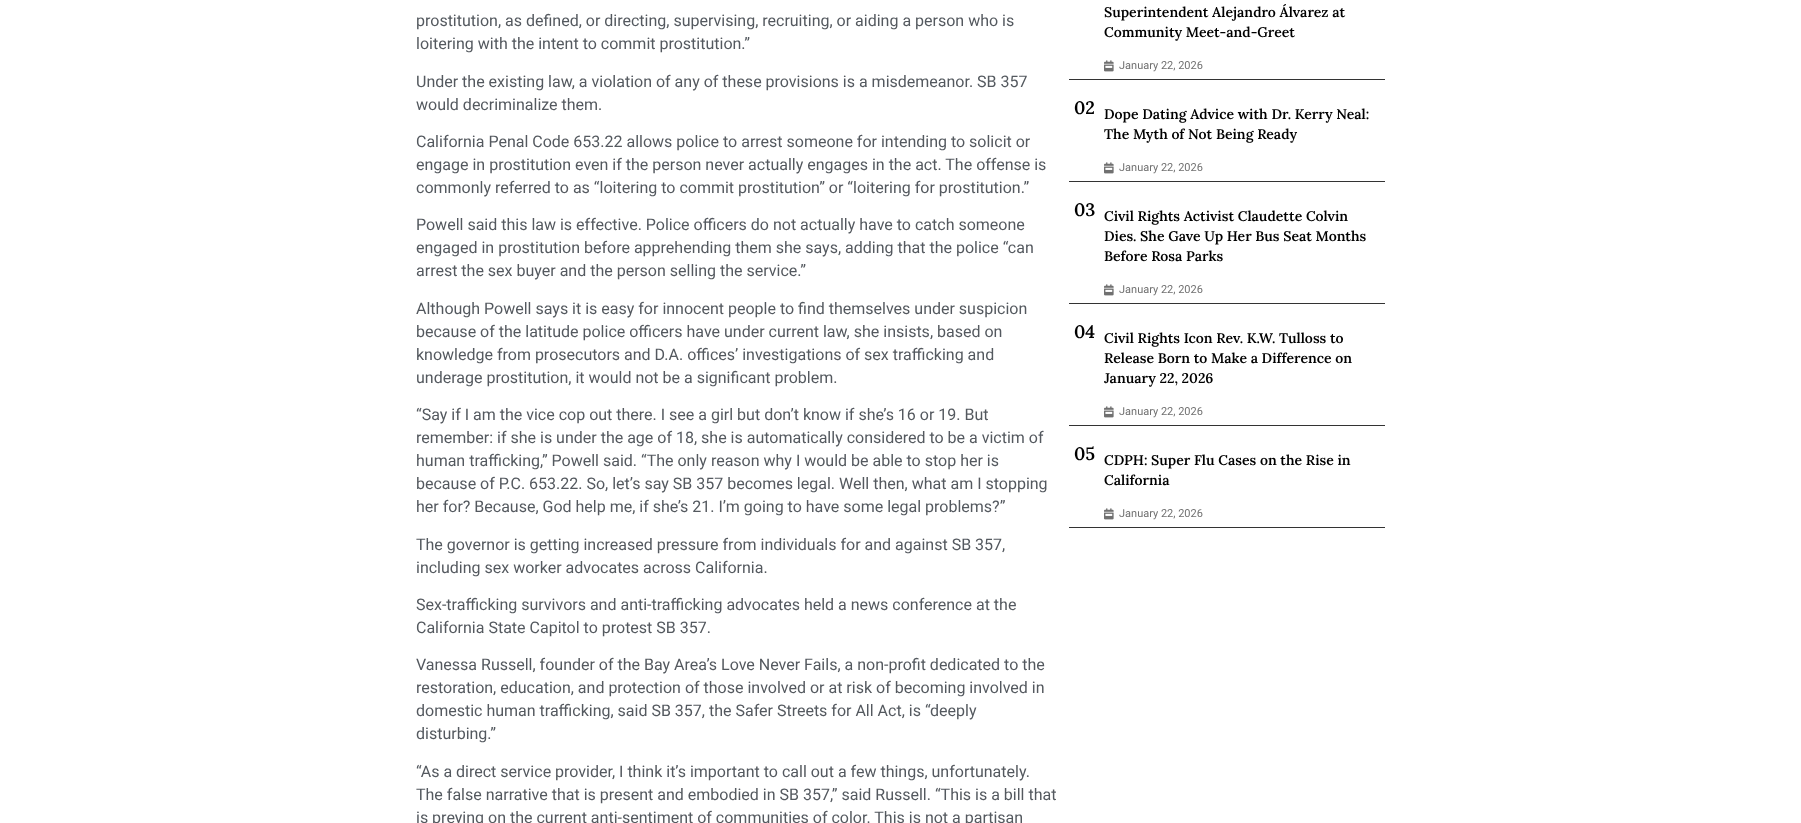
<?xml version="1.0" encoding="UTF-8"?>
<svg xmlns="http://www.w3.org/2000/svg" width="1801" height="823">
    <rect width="100%" height="100%" fill="#FFFFFF"/>
    <text font-family="Roboto" font-size="16" fill="#54595F">
        <tspan x="416" y="26">prostitution, as defined, or directing, supervising, recruiting, or aiding a person who is</tspan>
        <tspan x="416" y="49">loitering with the intent to commit prostitution.”</tspan>
    </text>
    <text font-family="Roboto" font-size="16" fill="#54595F">
        <tspan x="416" y="87">Under the existing law, a violation of any of these provisions is a misdemeanor. SB 357</tspan>
        <tspan x="416" y="110">would decriminalize them.</tspan>
    </text>
    <text font-family="Roboto" font-size="16" fill="#54595F">
        <tspan x="416" y="147">California Penal Code 653.22 allows police to arrest someone for intending to solicit or</tspan>
        <tspan x="416" y="170">engage in prostitution even if the person never actually engages in the act. The offense is</tspan>
        <tspan x="416" y="193">commonly referred to as “loitering to commit prostitution” or “loitering for prostitution.”</tspan>
    </text>
    <text font-family="Roboto" font-size="16" fill="#54595F">
        <tspan x="416" y="230">Powell said this law is effective. Police officers do not actually have to catch someone</tspan>
        <tspan x="416" y="253">engaged in prostitution before apprehending them she says, adding that the police “can</tspan>
        <tspan x="416" y="276">arrest the sex buyer and the person selling the service.”</tspan>
    </text>
    <text font-family="Roboto" font-size="16" fill="#54595F">
        <tspan x="416" y="314">Although Powell says it is easy for innocent people to find themselves under suspicion</tspan>
        <tspan x="416" y="337">because of the latitude police officers have under current law, she insists, based on</tspan>
        <tspan x="416" y="360">knowledge from prosecutors and D.A. offices’ investigations of sex trafficking and</tspan>
        <tspan x="416" y="383">underage prostitution, it would not be a significant problem.</tspan>
    </text>
    <text font-family="Roboto" font-size="16" fill="#54595F">
        <tspan x="416" y="420">“Say if I am the vice cop out there. I see a girl but don’t know if she’s 16 or 19. But</tspan>
        <tspan x="416" y="443">remember: if she is under the age of 18, she is automatically considered to be a victim of</tspan>
        <tspan x="416" y="466">human trafficking,” Powell said. “The only reason why I would be able to stop her is</tspan>
        <tspan x="416" y="489">because of P.C. 653.22. So, let’s say SB 357 becomes legal. Well then, what am I stopping</tspan>
        <tspan x="416" y="512">her for? Because, God help me, if she’s 21. I’m going to have some legal problems?”</tspan>
    </text>
    <text font-family="Roboto" font-size="16" fill="#54595F">
        <tspan x="416" y="550">The governor is getting increased pressure from individuals for and against SB 357,</tspan>
        <tspan x="416" y="573">including sex worker advocates across California.</tspan>
    </text>
    <text font-family="Roboto" font-size="16" fill="#54595F">
        <tspan x="416" y="610">Sex-trafficking survivors and anti-trafficking advocates held a news conference at the</tspan>
        <tspan x="416" y="633">California State Capitol to protest SB 357.</tspan>
    </text>
    <text font-family="Roboto" font-size="16" fill="#54595F">
        <tspan x="416" y="670">Vanessa Russell, founder of the Bay Area’s Love Never Fails, a non-profit dedicated to the</tspan>
        <tspan x="416" y="693">restoration, education, and protection of those involved or at risk of becoming involved in</tspan>
        <tspan x="416" y="716">domestic human trafficking, said SB 357, the Safer Streets for All Act, is “deeply</tspan>
        <tspan x="416" y="739">disturbing.”</tspan>
    </text>
    <text font-family="Roboto" font-size="16" fill="#54595F">
        <tspan x="416" y="777">“As a direct service provider, I think it’s important to call out a few things, unfortunately.</tspan>
        <tspan x="416" y="800">The false narrative that is present and embodied in SB 357,” said Russell. “This is a bill that</tspan>
        <tspan x="416" y="823">is preying on the current anti-sentiment of communities of color. This is not a partisan</tspan>
    </text>
    <rect x="1069" y="79" width="316" height="1" fill="#333333"/>
    <text font-family="Lora" font-size="14" font-weight="600" fill="#000000">
        <tspan x="1104" y="17">Superintendent Alejandro Álvarez at</tspan>
        <tspan x="1104" y="37">Community Meet-and-Greet</tspan>
    </text>
    <image x="1104" y="60" width="10" height="12" href="img_01.png"/>
    <text x="1119" y="69" font-family="Roboto" font-size="11" fill="#707070">January 22, 2026</text>
    <rect x="1069" y="181" width="316" height="1" fill="#333333"/>
    <text x="1074" y="114" font-family="Lora" font-size="18" font-weight="600" fill="#000000">02</text>
    <text font-family="Lora" font-size="14" font-weight="600" fill="#000000">
        <tspan x="1104" y="119">Dope Dating Advice with Dr. Kerry Neal:</tspan>
        <tspan x="1104" y="139">The Myth of Not Being Ready</tspan>
    </text>
    <image x="1104" y="162" width="10" height="12" href="img_01.png"/>
    <text x="1119" y="171" font-family="Roboto" font-size="11" fill="#707070">January 22, 2026</text>
    <rect x="1069" y="303" width="316" height="1" fill="#333333"/>
    <text x="1074" y="216" font-family="Lora" font-size="18" font-weight="600" fill="#000000">03</text>
    <text font-family="Lora" font-size="14" font-weight="600" fill="#000000">
        <tspan x="1104" y="221">Civil Rights Activist Claudette Colvin</tspan>
        <tspan x="1104" y="241">Dies. She Gave Up Her Bus Seat Months</tspan>
        <tspan x="1104" y="261">Before Rosa Parks</tspan>
    </text>
    <image x="1104" y="284" width="10" height="12" href="img_01.png"/>
    <text x="1119" y="293" font-family="Roboto" font-size="11" fill="#707070">January 22, 2026</text>
    <rect x="1069" y="425" width="316" height="1" fill="#333333"/>
    <text x="1074" y="338" font-family="Lora" font-size="18" font-weight="600" fill="#000000">04</text>
    <text font-family="Lora" font-size="14" font-weight="600" fill="#000000">
        <tspan x="1104" y="343">Civil Rights Icon Rev. K.W. Tulloss to</tspan>
        <tspan x="1104" y="363">Release Born to Make a Difference on</tspan>
        <tspan x="1104" y="383">January 22, 2026</tspan>
    </text>
    <image x="1104" y="406" width="10" height="12" href="img_01.png"/>
    <text x="1119" y="415" font-family="Roboto" font-size="11" fill="#707070">January 22, 2026</text>
    <rect x="1069" y="527" width="316" height="1" fill="#333333"/>
    <text x="1074" y="460" font-family="Lora" font-size="18" font-weight="600" fill="#000000">05</text>
    <text font-family="Lora" font-size="14" font-weight="600" fill="#000000">
        <tspan x="1104" y="465">CDPH: Super Flu Cases on the Rise in</tspan>
        <tspan x="1104" y="485">California</tspan>
    </text>
    <image x="1104" y="508" width="10" height="12" href="img_01.png"/>
    <text x="1119" y="517" font-family="Roboto" font-size="11" fill="#707070">January 22, 2026</text>
</svg>
